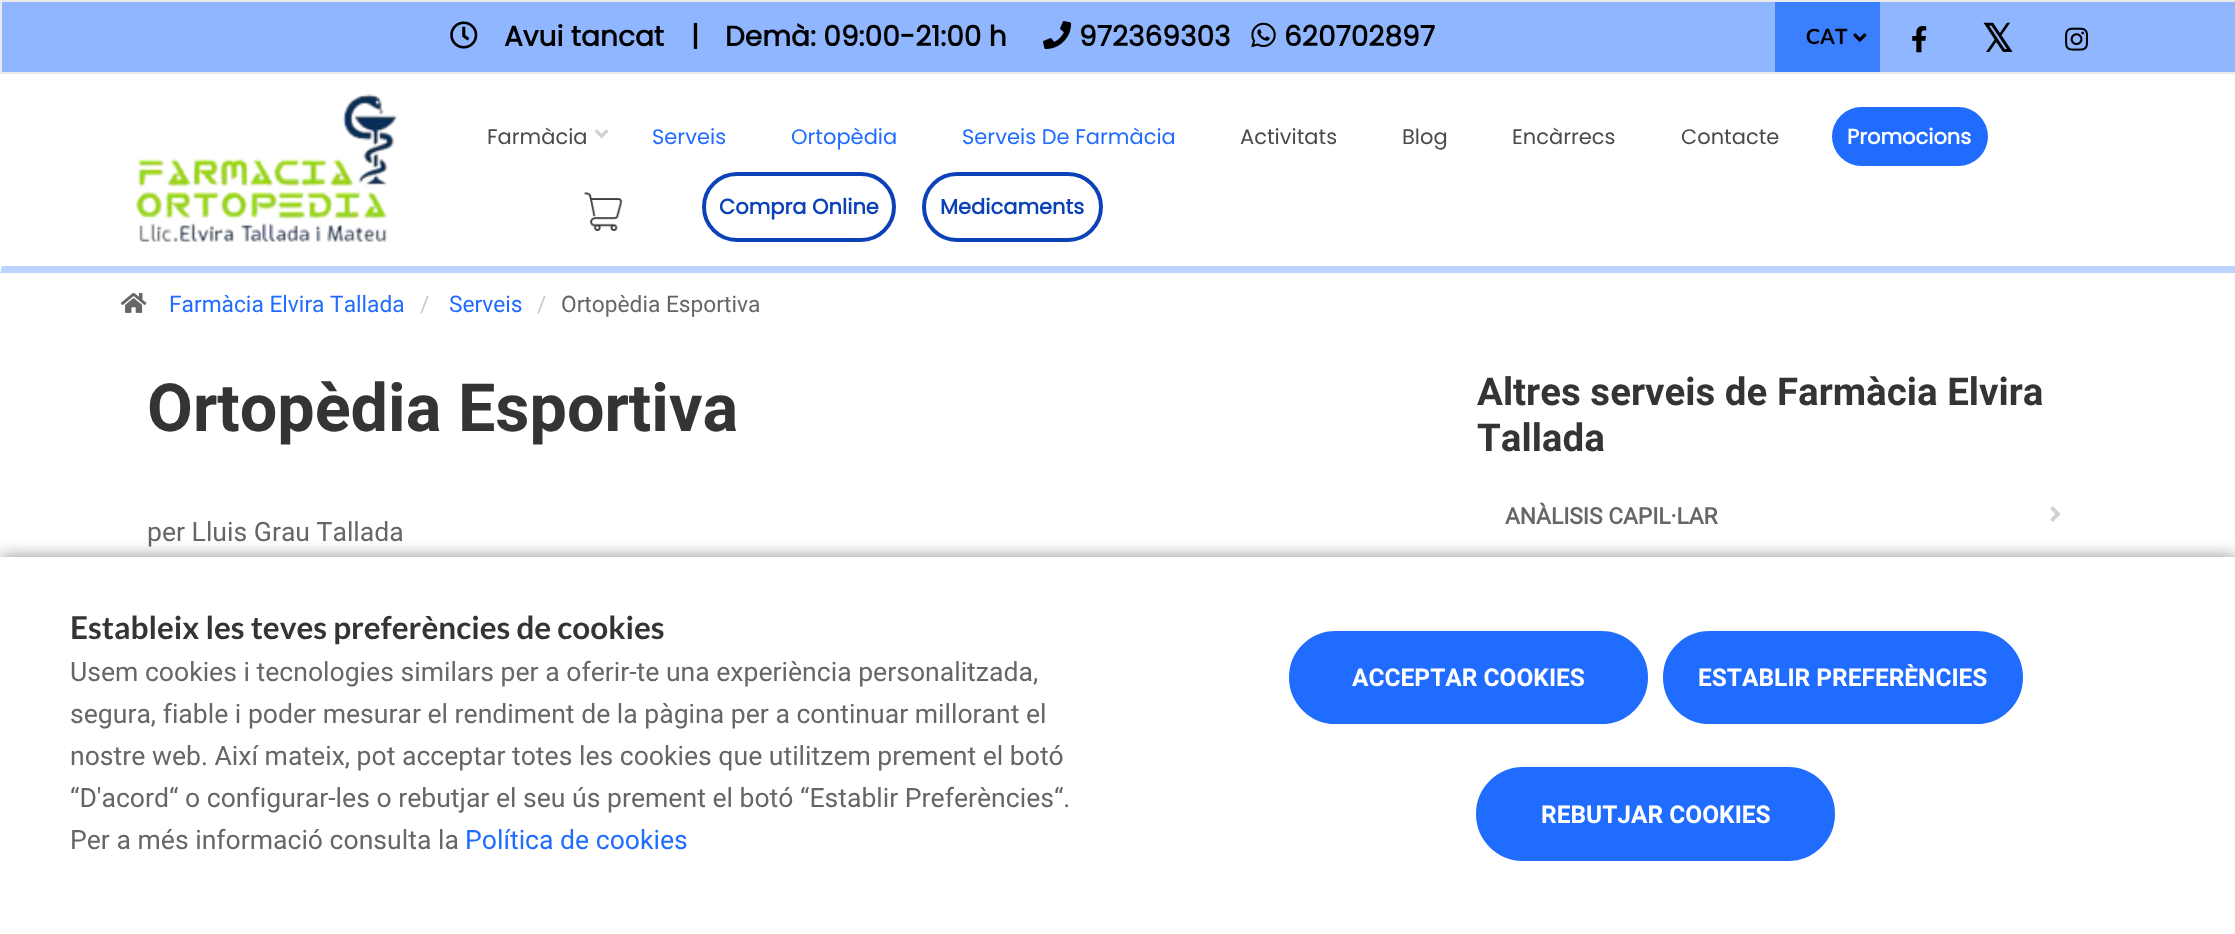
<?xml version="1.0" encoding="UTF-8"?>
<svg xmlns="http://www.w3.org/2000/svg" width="2235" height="934">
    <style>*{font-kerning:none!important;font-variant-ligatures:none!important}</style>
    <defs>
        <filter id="blur1" x="-50%" y="-200%" width="200%" height="500%"><feGaussianBlur stdDeviation="9"/></filter>
    </defs>
    <rect width="100%" height="100%" fill="#FFFFFF"/>
    <rect x="1" y="1" width="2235" height="72" fill="#8FB6FF" stroke="#EAEAEA" stroke-width="2"/>
    <image x="450" y="21" width="28" height="28" href="img_01.png"/>
    <text x="504" y="46" font-family="Poppins" font-size="28" font-weight="700" fill="#000000">Avui tancat</text>
    <text x="691" y="46" font-family="Poppins" font-size="28" font-weight="700" fill="#000000">|</text>
    <text x="725" y="46" font-family="Poppins" font-size="28" font-weight="700" fill="#000000">Demà: 09:00-21:00 h</text>
    <image x="1043" y="21" width="29" height="28" href="img_02.png"/>
    <text x="1079" y="46" font-family="Poppins" font-size="28" font-weight="700" fill="#000000">972369303</text>
    <image x="1251" y="22" width="25" height="26" href="img_03.png"/>
    <text x="1284" y="46" font-family="Poppins" font-size="28" font-weight="700" fill="#000000">620702897</text>
    <rect x="1775" y="2" width="105" height="70" fill="#3B7FFF"/>
    <text x="1806" y="44" font-family="Lato" font-size="21" font-weight="700" fill="#000000">CAT</text>
    <image x="1853" y="33" width="14" height="9" href="img_04.png"/>
    <image x="1912" y="26" width="15" height="27" href="img_05.png"/>
    <text x="1982" y="52" font-family="DejaVu Sans" font-size="38.5" font-weight="700" fill="#000000">𝕏</text>
    <image x="2065" y="27" width="23" height="24" href="img_06.png"/>
    <path d="M 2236 273 H 0 L 2 266 H 2235 Z" fill="#BCD3FF"/>
    <image x="129" y="94" width="269" height="148" href="img_07.png"/>
    <text x="487" y="144" font-family="Poppins" font-size="21" fill="#4A4A49">Farmàcia</text>
    <image x="595" y="129" width="14" height="9" href="img_08.png"/>
    <text x="652" y="144" font-family="Poppins" font-size="21" fill="#1F6CFF">Serveis</text>
    <text x="791" y="144" font-family="Poppins" font-size="21" fill="#1F6CFF">Ortopèdia</text>
    <text x="962" y="144" font-family="Poppins" font-size="21" fill="#1F6CFF">Serveis De Farmàcia</text>
    <text x="1240" y="144" font-family="Poppins" font-size="21" fill="#4A4A49">Activitats</text>
    <text x="1402" y="144" font-family="Poppins" font-size="21" fill="#4A4A49">Blog</text>
    <text x="1512" y="144" font-family="Poppins" font-size="21" fill="#4A4A49">Encàrrecs</text>
    <text x="1681" y="144" font-family="Poppins" font-size="21" fill="#4A4A49">Contacte</text>
    <rect x="1832" y="107" width="156" height="59" rx="29.5" fill="#1F6CFF"/>
    <text x="1847" y="144" font-family="Poppins" font-size="21" font-weight="700" fill="#FFFFFF">Promocions</text>
    <image x="584" y="192" width="39" height="39" href="img_09.png"/>
    <rect x="704" y="174" width="190" height="66" rx="33" fill="none" stroke="#0B42B7" stroke-width="4"/>
    <text x="719" y="214" font-family="Poppins" font-size="21" font-weight="700" fill="#0B42B7">Compra Online</text>
    <rect x="924" y="174" width="177" height="66" rx="33" fill="none" stroke="#0B42B7" stroke-width="4"/>
    <text x="940" y="214" font-family="Poppins" font-size="21" font-weight="700" fill="#0B42B7">Medicaments</text>
    <image x="120" y="293" width="27" height="20" href="img_10.png"/>
    <text x="169" y="312" font-family="Roboto" font-size="22.75" fill="#1F6CFF">Farmàcia Elvira Tallada</text>
    <text x="420" y="312" font-family="Roboto" font-size="22.75" fill="#CCCCCC">/</text>
    <text x="449" y="312" font-family="Roboto" font-size="22.75" fill="#1F6CFF">Serveis</text>
    <text x="537" y="312" font-family="Roboto" font-size="22.75" fill="#CCCCCC">/</text>
    <text x="561" y="312" font-family="Roboto" font-size="22.75" fill="#666666">Ortopèdia Esportiva</text>
    <text x="147" y="431" font-family="Roboto" font-size="66.5" font-weight="700" fill="#343434">Ortopèdia Esportiva</text>
    <text x="147" y="541" font-family="Roboto" font-size="26.6" fill="#666666">per Lluis Grau Tallada</text>
    <text font-family="Roboto" font-size="38.5" font-weight="700" fill="#343434">
        <tspan x="1477" y="405">Altres serveis de Farmàcia Elvira</tspan>
        <tspan x="1477" y="451">Tallada</tspan>
    </text>
    <text x="1505" y="524" font-family="'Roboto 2'" font-size="22.75" font-weight="700" fill="#666666">ANÀLISIS CAPIL·LAR</text>
    <image x="2050" y="506" width="11" height="16" href="img_11.png"/>
    <rect x="0" y="558" width="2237" height="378" fill="#000000" fill-opacity="0.5" filter="url(#blur1)"/>
    <rect x="0" y="557" width="2235" height="377" fill="#FFFFFF"/>
    <text x="70" y="639" font-family="Lato" font-size="31.5" font-weight="700" fill="#343434">Estableix les teves preferències de cookies</text>
    <text font-family="Roboto" font-size="26.6" fill="#666666">
        <tspan x="70" y="681">Usem cookies i tecnologies similars per a oferir-te una experiència personalitzada,</tspan>
        <tspan x="70" y="723">segura, fiable i poder mesurar el rendiment de la pàgina per a continuar millorant el</tspan>
        <tspan x="70" y="765">nostre web. Així mateix, pot acceptar totes les cookies que utilitzem prement el botó</tspan>
        <tspan x="70" y="807">“D'acord“ o configurar-les o rebutjar el seu ús prement el botó “Establir Preferències“.</tspan>
        <tspan x="70" y="849">Per a més informació consulta la</tspan>
    </text>
    <text x="465" y="849" font-family="Roboto" font-size="26.6" fill="#1F6CFF">Política de cookies</text>
    <rect x="1287" y="629" width="363" height="97" rx="48.5" fill="#1F6CFF" stroke="#FFFFFF" stroke-width="4"/>
    <text x="1352" y="686" font-family="Roboto" font-size="24.5" font-weight="700" fill="#FFFFFF">ACCEPTAR COOKIES</text>
    <rect x="1661" y="629" width="364" height="97" rx="48.5" fill="#1F6CFF" stroke="#FFFFFF" stroke-width="4"/>
    <text x="1698" y="686" font-family="Roboto" font-size="24.5" font-weight="700" fill="#FFFFFF">ESTABLIR PREFERÈNCIES</text>
    <rect x="1474" y="765" width="363" height="98" rx="49" fill="#1F6CFF" stroke="#FFFFFF" stroke-width="4"/>
    <text x="1541" y="823" font-family="Roboto" font-size="24.5" font-weight="700" fill="#FFFFFF">REBUTJAR COOKIES</text>
</svg>
